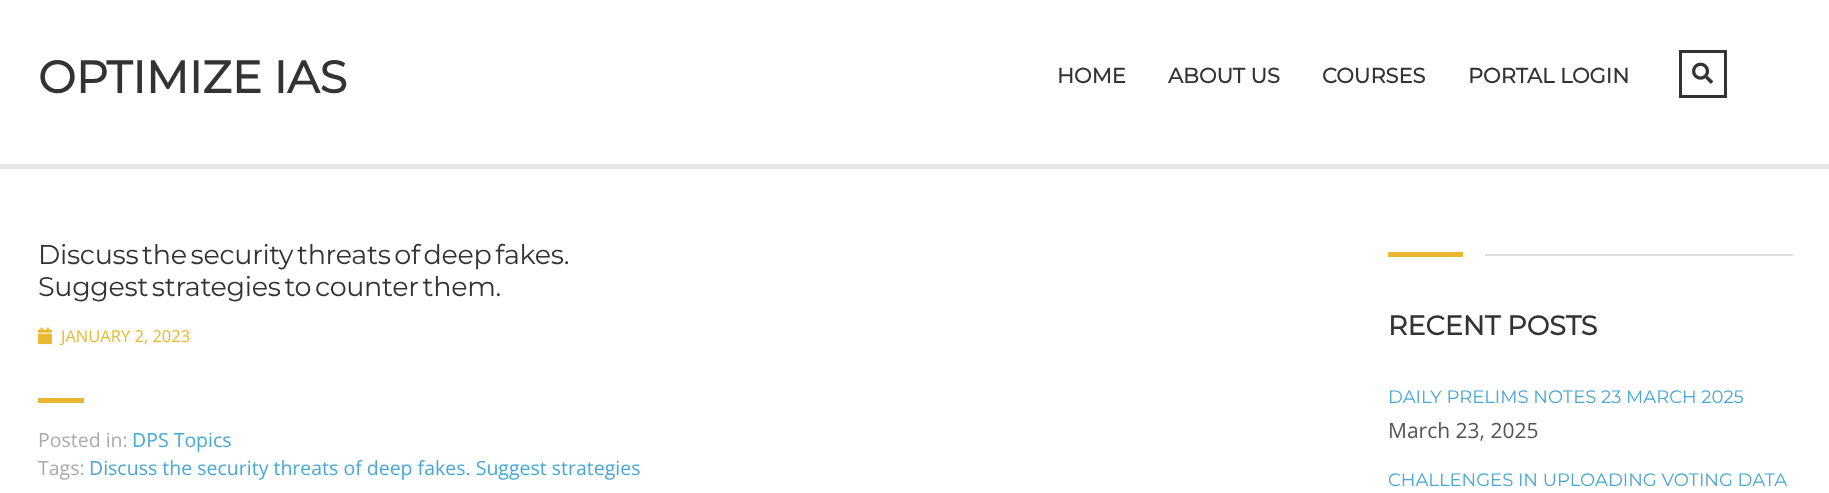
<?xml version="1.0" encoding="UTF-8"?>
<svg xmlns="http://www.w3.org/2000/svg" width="1829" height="493">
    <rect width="100%" height="100%" fill="#FFFFFF"/>
    <text x="38" y="93" font-family="Montserrat" font-size="45" font-weight="700" fill="#333333">OPTIMIZE IAS</text>
    <text x="1057" y="83" font-family="Montserrat" font-size="21" font-weight="700" fill="#333333">HOME</text>
    <text x="1168" y="83" font-family="Montserrat" font-size="21" font-weight="700" fill="#333333">ABOUT US</text>
    <text x="1322" y="83" font-family="Montserrat" font-size="21" font-weight="700" fill="#333333">COURSES</text>
    <text x="1468" y="83" font-family="Montserrat" font-size="21" font-weight="700" fill="#333333">PORTAL LOGIN</text>
    <rect x="1680.5" y="51.5" width="45" height="45" fill="none" stroke="#333333" stroke-width="3"/>
    <image x="1692" y="62" width="21" height="22" href="img_01.png"/>
    <rect x="0" y="164" width="1829" height="5" fill="#E6E6E6"/>
    <text font-family="Montserrat" font-size="27" font-weight="100" letter-spacing="-0.3" fill="#333333">
        <tspan x="38" y="264" word-spacing="-3">Discuss the security threats of deep fakes.</tspan>
        <tspan x="38" y="296" word-spacing="-3">Suggest strategies to counter them.</tspan>
    </text>
    <image x="38" y="327" width="14" height="18" href="img_02.png"/>
    <text x="61" y="342" font-family="Open Sans" font-size="16.5" fill="#EAB830">JANUARY 2, 2023</text>
    <rect x="38" y="398" width="46" height="5" fill="#EAB830"/>
    <text x="38" y="447" font-family="Open Sans" font-size="19.5" fill="#AAAAAA">Posted in:</text>
    <text x="132" y="447" font-family="Open Sans" font-size="19.5" fill="#48A7D4">DPS Topics</text>
    <text x="38" y="475" font-family="Open Sans" font-size="19.5" fill="#AAAAAA">Tags:</text>
    <text x="89" y="475" font-family="Open Sans" font-size="19.5" fill="#48A7D4">Discuss the security threats of deep fakes. Suggest strategies</text>
    <rect x="1388" y="252" width="75" height="5" fill="#EAB830"/>
    <rect x="1485" y="254" width="308" height="2" fill="#DCDCDC"/>
    <text x="1388" y="335" font-family="Montserrat" font-size="27" font-weight="700" fill="#333333">RECENT POSTS</text>
    <text x="1388" y="403" font-family="Montserrat" font-size="18" font-weight="100" fill="#48A7D4">DAILY PRELIMS NOTES 23 MARCH 2025</text>
    <text x="1388" y="438" font-family="Open Sans" font-size="21" fill="#555555">March 23, 2025</text>
    <text x="1388" y="486" font-family="Montserrat" font-size="18" font-weight="100" fill="#48A7D4">CHALLENGES IN UPLOADING VOTING DATA</text>
</svg>
